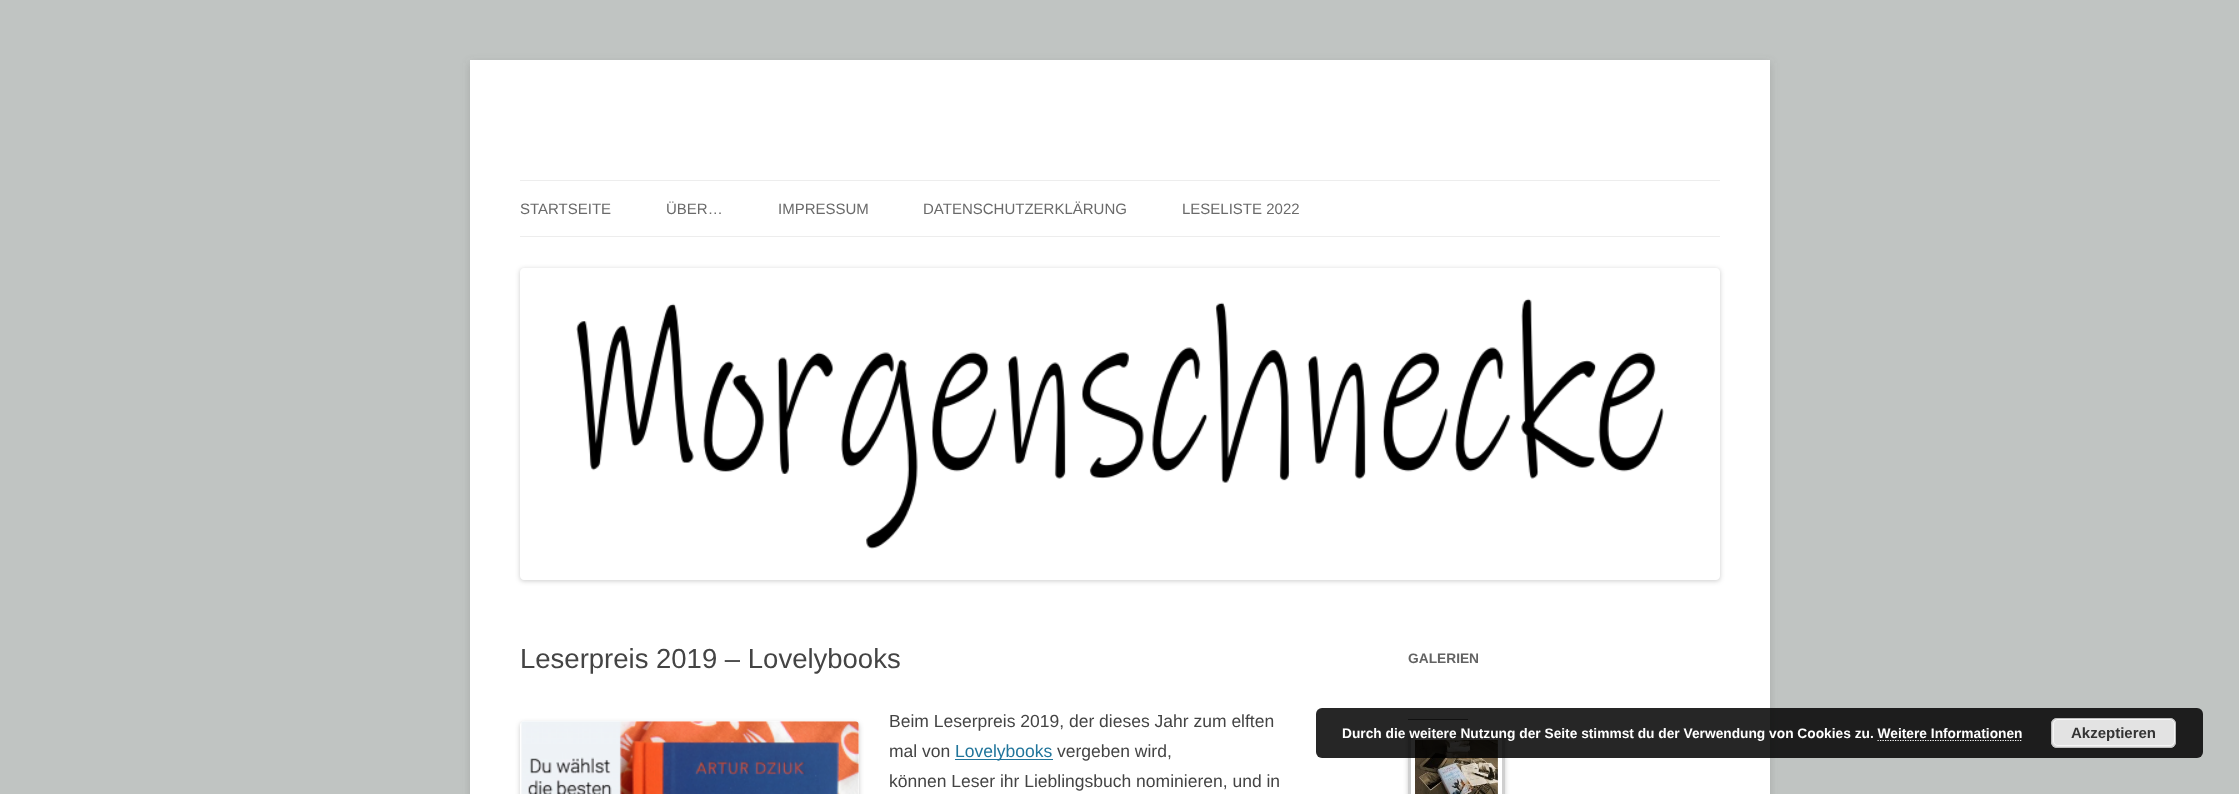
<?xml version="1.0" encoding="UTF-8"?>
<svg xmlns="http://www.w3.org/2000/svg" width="2239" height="794">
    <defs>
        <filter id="blur1" x="-50%" y="-200%" width="200%" height="500%"><feGaussianBlur stdDeviation="4"/></filter>
        <clipPath id="clip1"><path d="M 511 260 H 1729 V 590 H 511 Z M 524 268 H 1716 C 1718 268 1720 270 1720 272 V 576 C 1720 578 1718 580 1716 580 H 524 C 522 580 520 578 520 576 V 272 C 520 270 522 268 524 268 Z" clip-rule="evenodd"/></clipPath>
        <filter id="blur2" x="-50%" y="-200%" width="200%" height="500%"><feGaussianBlur stdDeviation="2.5"/></filter>
        <clipPath id="clip2"><path d="M 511 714 H 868 V 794 H 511 Z M 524 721 H 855 C 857 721 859 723 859 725 V 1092 C 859 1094 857 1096 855 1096 H 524 C 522 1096 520 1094 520 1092 V 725 C 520 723 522 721 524 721 Z" clip-rule="evenodd"/></clipPath>
        <clipPath id="clip3"><path d="M 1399 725 H 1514 V 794 H 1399 Z M 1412 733 H 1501 C 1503 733 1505 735 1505 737 V 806 C 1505 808 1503 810 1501 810 H 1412 C 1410 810 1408 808 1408 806 V 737 C 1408 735 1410 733 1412 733 Z" clip-rule="evenodd"/></clipPath>
    </defs>
    <rect width="100%" height="100%" fill="#C0C4C2"/>
    <rect x="470" y="63" width="1300" height="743" fill="#646464" fill-opacity="0.3" filter="url(#blur1)"/>
    <rect x="470" y="60" width="1300" height="734" fill="#FFFFFF"/>
    <rect x="520" y="180" width="1200" height="1" fill="#EDEDED"/>
    <rect x="520" y="236" width="1200" height="1" fill="#EDEDED"/>
    <text x="520" y="214" font-family="Liberation Sans" font-size="15" fill="#6A6A6A">STARTSEITE</text>
    <text x="666" y="214" font-family="Liberation Sans" font-size="15" fill="#6A6A6A">ÜBER…</text>
    <text x="778" y="214" font-family="Liberation Sans" font-size="15" fill="#6A6A6A">IMPRESSUM</text>
    <text x="923" y="214" font-family="Liberation Sans" font-size="15" fill="#6A6A6A">DATENSCHUTZERKLÄRUNG</text>
    <text x="1182" y="214" font-family="Liberation Sans" font-size="15" fill="#6A6A6A">LESELISTE 2022</text>
    <g clip-path="url(#clip1)">
        <rect x="520" y="269" width="1200" height="312" rx="4" fill="#000000" fill-opacity="0.2" filter="url(#blur2)"/>
    </g>
    <image x="576" y="298" width="1088" height="251" href="img_01.png"/>
    <text x="520" y="668" font-family="Liberation Sans" font-size="27.5" fill="#444444">Leserpreis 2019 – Lovelybooks</text>
    <g clip-path="url(#clip2)">
        <rect x="520" y="723" width="339" height="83" rx="4" fill="#000000" fill-opacity="0.2" filter="url(#blur2)"/>
    </g>
    <image x="521" y="721" width="338" height="73" href="img_02.png"/>
    <text font-family="Liberation Sans" font-size="17.5" fill="#444444">
        <tspan x="889" y="727">Beim Leserpreis 2019, der dieses Jahr zum elften</tspan>
        <tspan x="889" y="757">mal von</tspan>
    </text>
    <rect x="955" y="759" width="98" height="1" fill="#21759B"/>
    <text x="955" y="757" font-family="Liberation Sans" font-size="17.5" fill="#21759B">Lovelybooks</text>
    <text x="1057" y="757" font-family="Liberation Sans" font-size="17.5" fill="#444444">vergeben wird,</text>
    <text x="889" y="787" font-family="Liberation Sans" font-size="17.5" fill="#444444">können Leser ihr Lieblingsbuch nominieren, und in</text>
    <text x="1408" y="663" font-family="Liberation Sans" font-size="13.75" font-weight="700" fill="#636363">GALERIEN</text>
    <rect x="1408" y="719" width="60" height="1" fill="#757575"/>
    <g clip-path="url(#clip3)">
        <rect x="1408" y="734" width="97" height="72" rx="4" fill="#000000" fill-opacity="0.2" filter="url(#blur2)"/>
    </g>
    <rect x="1409.5" y="734.5" width="94" height="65" rx="2.5" fill="none" stroke="#CFCFCF" stroke-width="3"/>
    <image x="1415" y="740" width="83" height="54" href="img_03.png"/>
    <rect x="1316" y="708" width="887" height="50" rx="6" fill="#000000" fill-opacity="0.85"/>
    <text x="1342" y="738" font-family="Liberation Sans" font-size="13.75" font-weight="700" fill="#FFFFFF">Durch die weitere Nutzung der Seite stimmst du der Verwendung von Cookies zu. Weitere Informationen</text>
    <rect x="2051" y="718" width="125" height="30" rx="6" fill="#E3E3E3"/>
    <rect x="2053.5" y="719.5" width="121" height="26" rx="4.5" fill="none" stroke="#F6F6F6"/>
    <rect x="2051.5" y="718.5" width="124" height="29" rx="5.5" fill="none" stroke="#BBBBBB"/>
    <text x="2071" y="738" font-family="Liberation Sans" font-size="15" font-weight="700" fill="#333333">Akzeptieren</text>
    <path d="M 1877.5 740.5 H 2022.5" fill="none" stroke="#FFFFFF" stroke-width="1.2" stroke-dasharray="1.25 1.25"/>
</svg>
